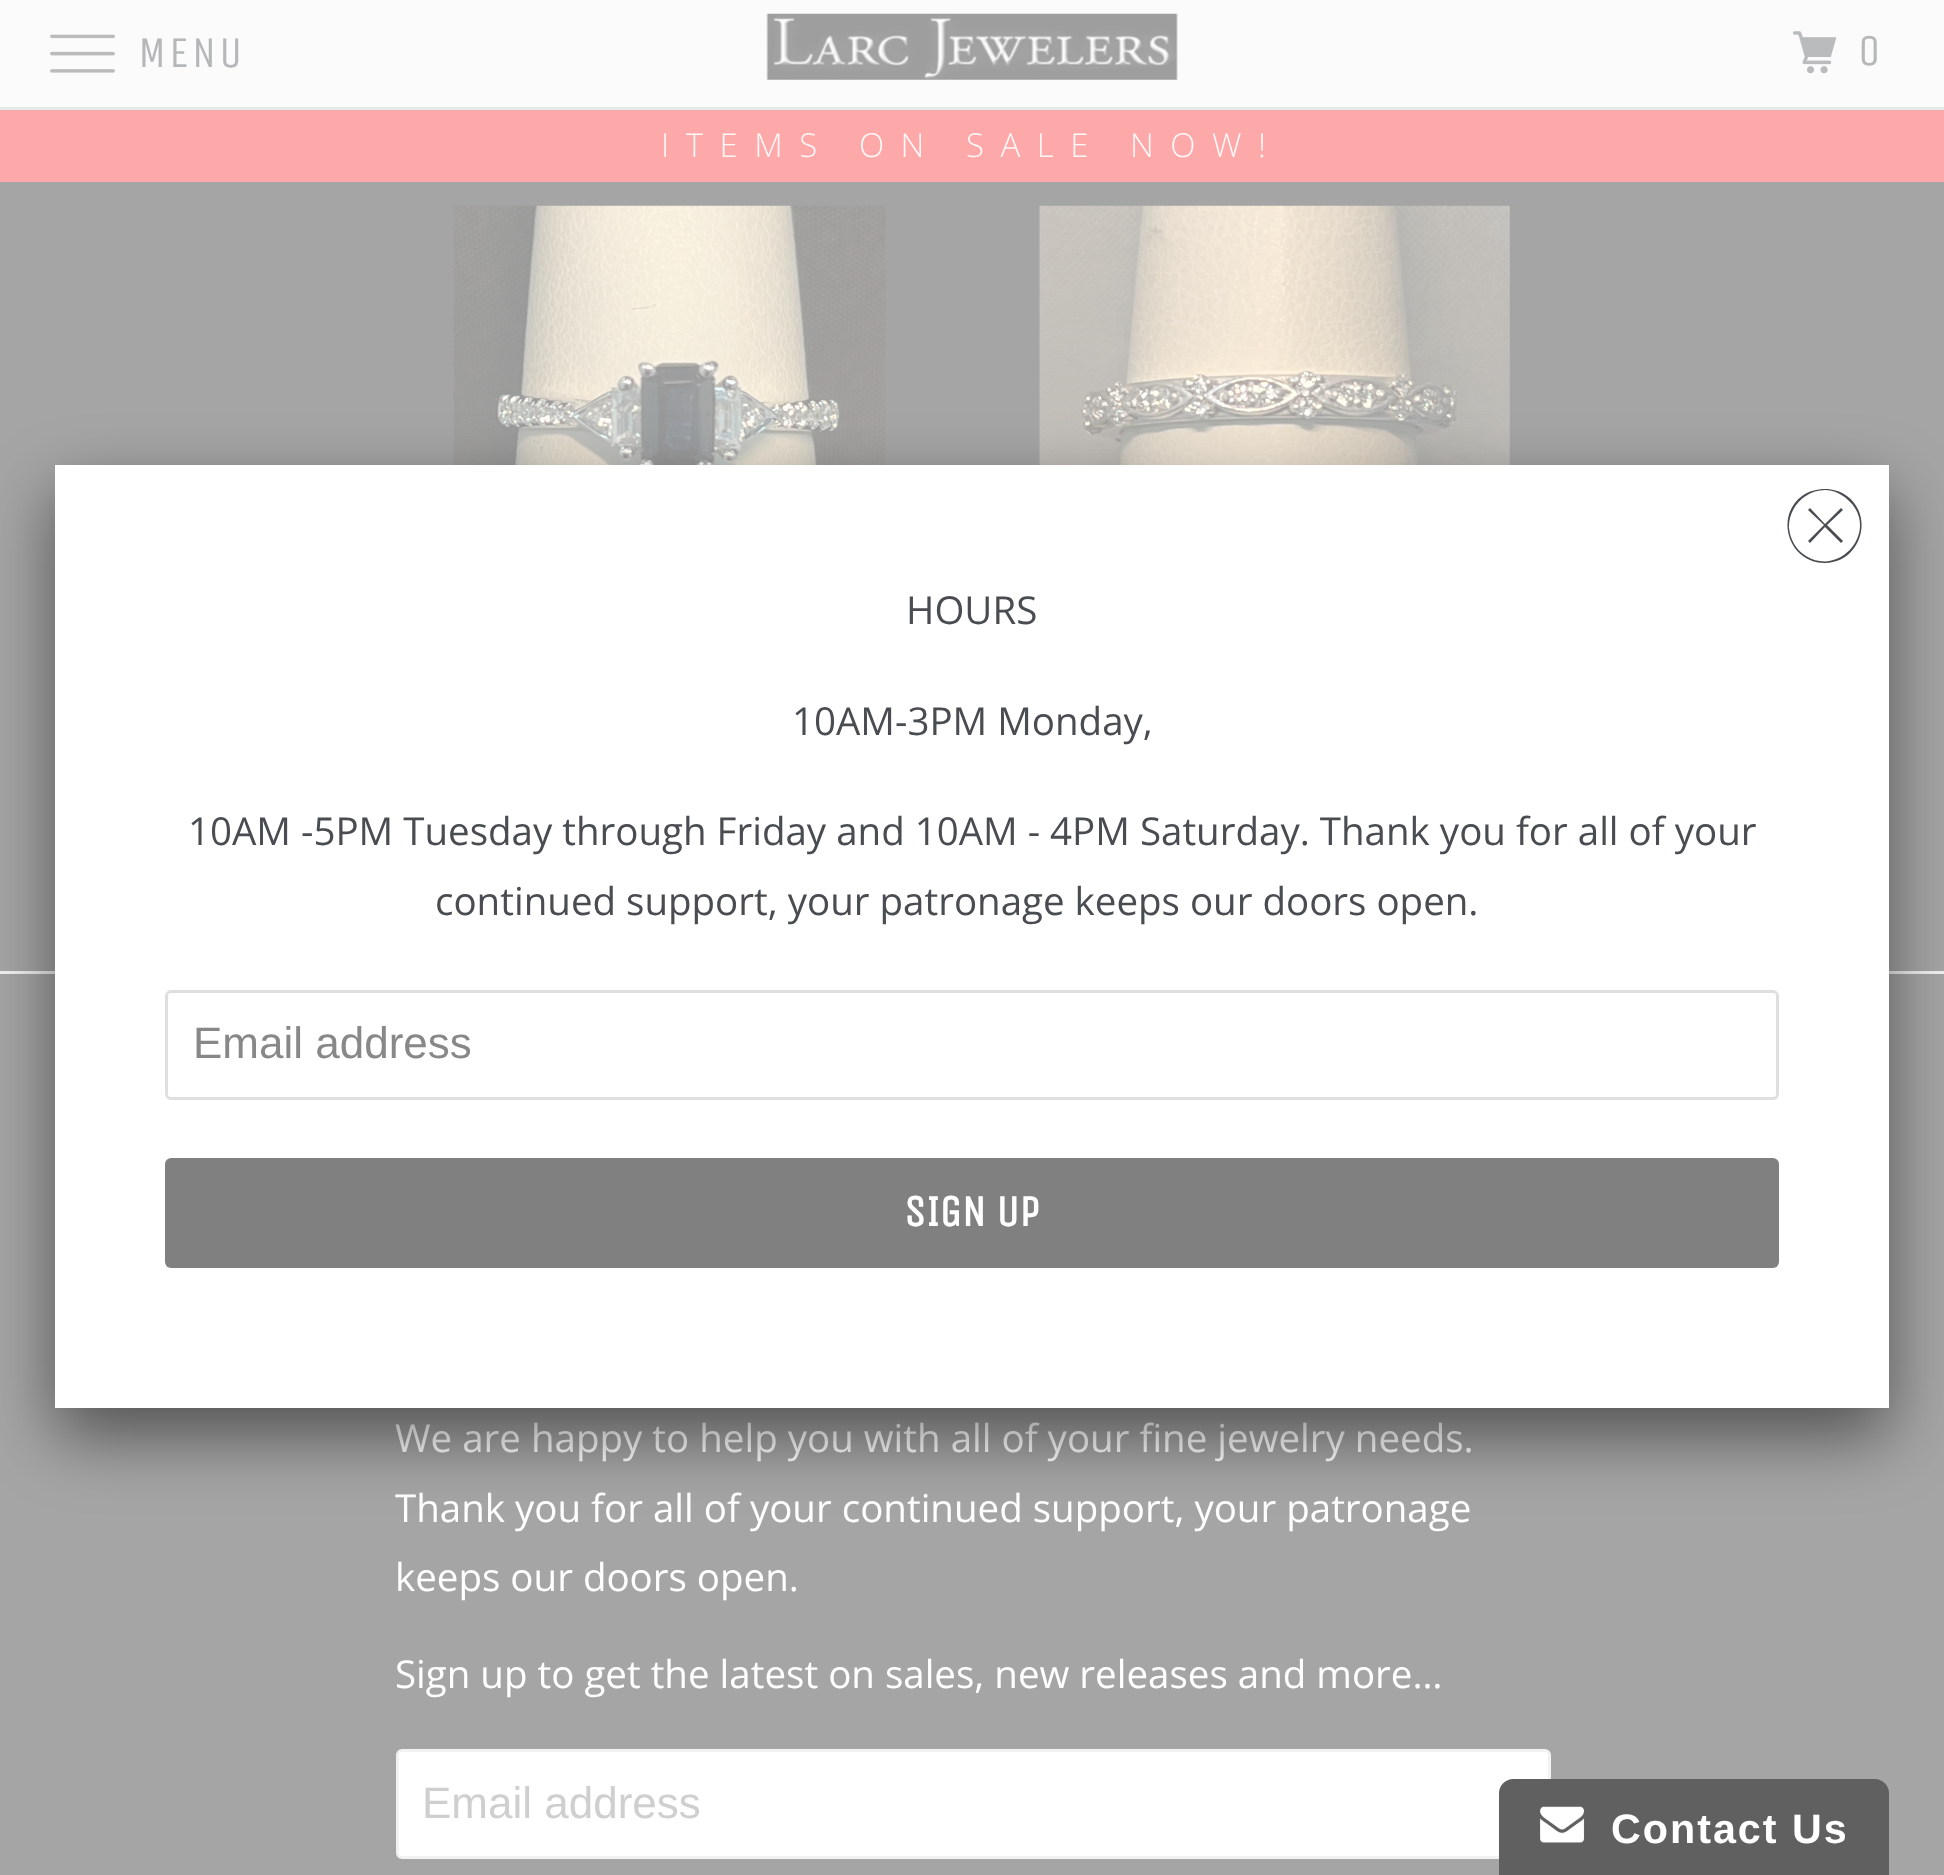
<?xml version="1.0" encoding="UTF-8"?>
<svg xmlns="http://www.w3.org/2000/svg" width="1944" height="1875">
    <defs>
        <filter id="blur1" x="-50%" y="-200%" width="200%" height="500%"><feGaussianBlur stdDeviation="34.5"/></filter>
    </defs>
    <rect width="100%" height="100%" fill="#A5A5A5"/>
    <rect x="0" y="0" width="1944" height="110" fill="#FFFFFF" fill-opacity="0.95"/>
    <rect x="0" y="107" width="1944" height="3" fill="#E3E8E8" fill-opacity="0.95"/>
    <image x="50" y="34" width="65" height="39" href="img_01.png"/>
    <text x="138" y="67" font-family="Unica One" font-size="44" letter-spacing="3" fill="#B5B7B8">MENU</text>
    <image x="766" y="13" width="412" height="67" href="img_02.png"/>
    <image x="1793" y="31" width="44" height="43" href="img_03.png"/>
    <text x="1858" y="65" font-family="Unica One" font-size="44" letter-spacing="3" fill="#B5B7B8">0</text>
    <rect x="0" y="110" width="1944" height="72" fill="#FEA9A9"/>
    <text x="661" y="157" font-family="Open Sans" font-size="33" font-weight="300" letter-spacing="16.5" fill="#FEF7F7">ITEMS ON SALE NOW!</text>
    <image x="453" y="205" width="433" height="260" href="img_04.png"/>
    <image x="1039" y="205" width="471" height="260" href="img_05.png"/>
    <rect x="0" y="971" width="1944" height="3" fill="#F1F1F1"/>
    <text font-family="Open Sans" font-size="38.5" fill="#FFFFFF">
        <tspan x="395" y="1452">We are happy to help you with all of your fine jewelry needs.</tspan>
        <tspan x="395" y="1522">Thank you for all of your continued support, your patronage</tspan>
        <tspan x="395" y="1591">keeps our doors open.</tspan>
    </text>
    <text x="395" y="1688" font-family="Open Sans" font-size="38.5" fill="#FFFFFF">Sign up to get the latest on sales, new releases and more…</text>
    <rect x="397.5" y="1750.5" width="1152" height="107" rx="4.5" fill="#FFFFFF" stroke="#F2F2F2" stroke-width="3"/>
    <text x="422" y="1818" font-family="Liberation Sans" font-size="44" fill="#CFCFCF">Email address</text>
    <rect x="55" y="492" width="1834" height="944" fill="#000000" fill-opacity="0.5" filter="url(#blur1)"/>
    <rect x="55" y="465" width="1834" height="943" fill="#FFFFFF"/>
    <path d="M 1825 490 C 1805 490 1788 508 1789 528 C 1790 539 1796 550 1806 556 C 1842 578 1880 528 1848 500 C 1842 494 1833 490 1825 490 Z M 1825 563 C 1789 563 1774 517 1802 496 C 1809 491 1817 489 1825 489 C 1833 489 1840 491 1847 496 C 1875 517 1860 563 1825 563 Z M 1843 510 L 1841 508 L 1825 524 L 1810 508 L 1808 510 L 1824 525 L 1808 541 L 1810 543 L 1825 527 L 1841 543 L 1843 541 L 1827 525 Z" fill="#494C50"/>
    <text x="906" y="624" font-family="Open Sans" font-size="38.5" fill="#494C50">HOURS</text>
    <text x="792" y="735" font-family="Open Sans" font-size="38.5" fill="#494C50">10AM-3PM Monday,</text>
    <text x="188" y="845" font-family="Open Sans" font-size="38.5" fill="#494C50">10AM -5PM Tuesday through Friday and 10AM - 4PM Saturday. Thank you for all of your</text>
    <text x="435" y="915" font-family="Open Sans" font-size="38.5" fill="#494C50">continued support, your patronage keeps our doors open.</text>
    <rect x="166.5" y="991.5" width="1611" height="107" rx="4.5" fill="none" stroke="#DFDFDF" stroke-width="3"/>
    <text x="193" y="1058" font-family="Liberation Sans" font-size="44" fill="#888888">Email address</text>
    <rect x="165" y="1158" width="1614" height="110" rx="6" fill="#808080"/>
    <text x="904" y="1226" font-family="Unica One" font-size="44" font-weight="700" fill="#FFFFFF">SIGN UP</text>
    <path d="M 1513 1779 H 1875 C 1882.5 1779 1889 1785.5 1889 1793 V 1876 H 1499 V 1793 C 1499 1785.5 1505.5 1779 1513 1779 Z" fill="#606060"/>
    <image x="1540" y="1806" width="45" height="37" href="img_06.png"/>
    <text x="1611" y="1843" font-family="Liberation Sans" font-size="41.25" font-weight="700" letter-spacing="2" fill="#FFFFFF">Contact Us</text>
</svg>
